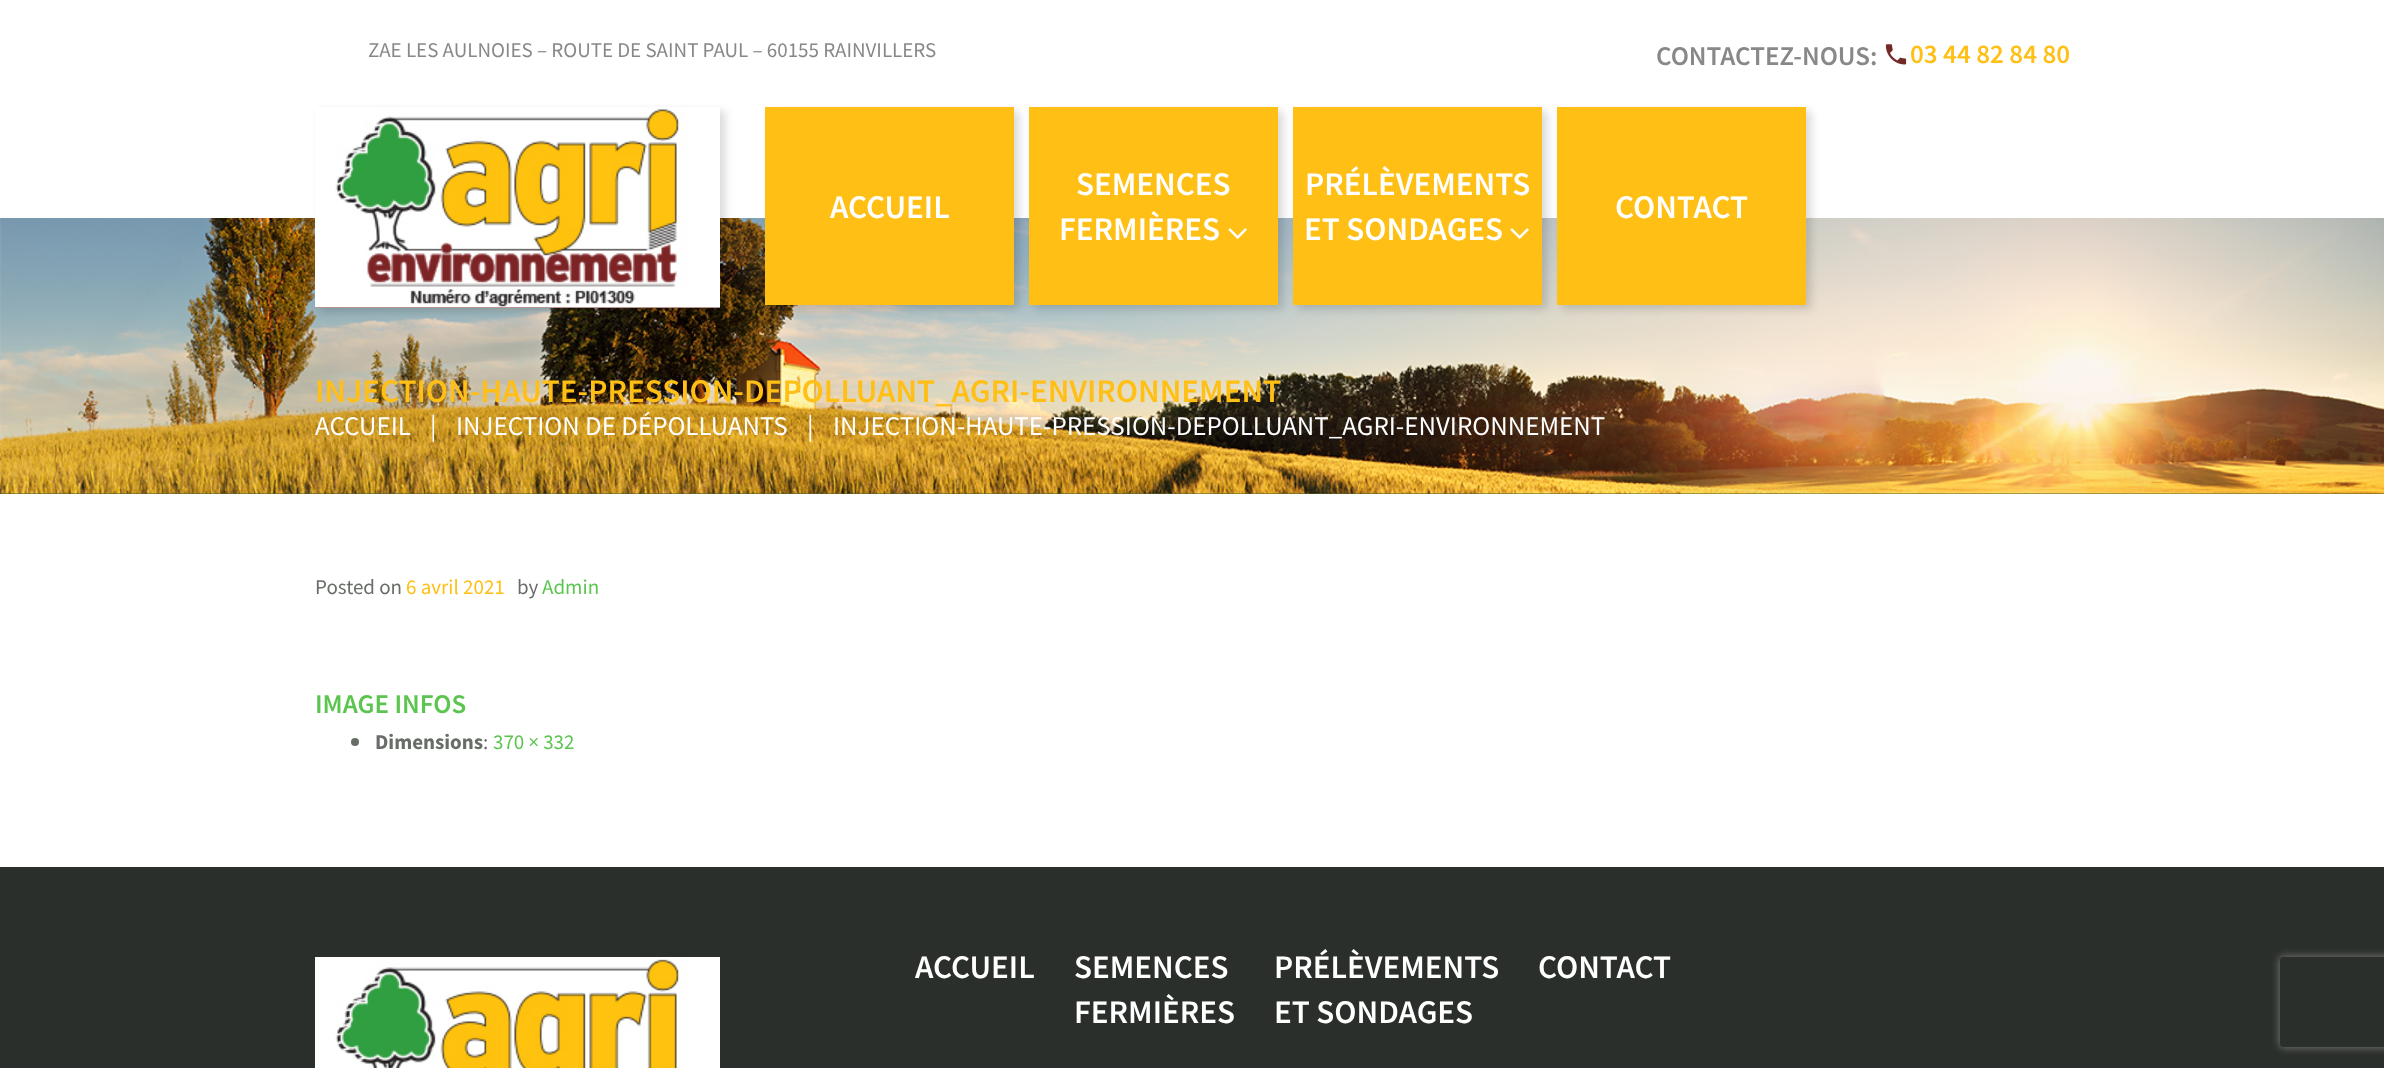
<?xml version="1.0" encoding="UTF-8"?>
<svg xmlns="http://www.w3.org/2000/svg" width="2384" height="1068">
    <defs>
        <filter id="blur1" x="-50%" y="-200%" width="200%" height="500%"><feGaussianBlur stdDeviation="4"/></filter>
        <clipPath id="clip1"><path d="M 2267 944 H 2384 V 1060 H 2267 Z M 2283 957 H 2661 C 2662.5 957 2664 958.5 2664 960 V 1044 C 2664 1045.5 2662.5 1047 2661 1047 H 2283 C 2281.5 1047 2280 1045.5 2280 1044 V 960 C 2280 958.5 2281.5 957 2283 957 Z" clip-rule="evenodd"/></clipPath>
    </defs>
    <rect width="100%" height="100%" fill="#FFFFFF"/>
    <text x="368" y="57" font-family="Source Sans Pro" font-size="21" fill="#888888">ZAE LES AULNOIES – ROUTE DE SAINT PAUL – 60155 RAINVILLERS</text>
    <text x="1656" y="65" font-family="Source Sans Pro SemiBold" font-size="27" font-weight="600" fill="#888888">CONTACTEZ-NOUS:</text>
    <image x="1885" y="44" width="22" height="21" href="img_01.png"/>
    <text x="1910" y="63" font-family="Source Sans Pro SemiBold" font-size="27" font-weight="600" fill="#FFBF15">03 44 82 84 80</text>
    <rect x="0" y="493" width="2384" height="1" fill="#545E29"/>
    <image x="0" y="218" width="2384" height="276" href="img_04.png"/>
    <rect x="320" y="111" width="405" height="201" fill="#000000" fill-opacity="0.15" filter="url(#blur1)"/>
    <rect x="315" y="307" width="405" height="1" fill="#732926"/>
    <image x="315" y="107" width="405" height="201" href="img_02.png"/>
    <rect x="770" y="111" width="249" height="198" fill="#000000" fill-opacity="0.15" filter="url(#blur1)"/>
    <rect x="765" y="107" width="249" height="198" fill="#FFBF15"/>
    <text x="830" y="218" font-family="Source Sans Pro SemiBold" font-size="33" font-weight="600" fill="#FFFFFF">ACCUEIL</text>
    <rect x="1034" y="111" width="249" height="198" fill="#000000" fill-opacity="0.15" filter="url(#blur1)"/>
    <rect x="1029" y="107" width="249" height="198" fill="#FFBF15"/>
    <text x="1076" y="195" font-family="Source Sans Pro SemiBold" font-size="33" font-weight="600" fill="#FFFFFF">SEMENCES</text>
    <text x="1059" y="240" font-family="Source Sans Pro SemiBold" font-size="33" font-weight="600" fill="#FFFFFF">FERMIÈRES</text>
    <image x="1228" y="228" width="19" height="11" href="img_03.png"/>
    <rect x="1298" y="111" width="249" height="198" fill="#000000" fill-opacity="0.15" filter="url(#blur1)"/>
    <rect x="1293" y="107" width="249" height="198" fill="#FFBF15"/>
    <text x="1305" y="195" font-family="Source Sans Pro SemiBold" font-size="33" font-weight="600" fill="#FFFFFF">PRÉLÈVEMENTS</text>
    <text x="1304" y="240" font-family="Source Sans Pro SemiBold" font-size="33" font-weight="600" fill="#FFFFFF">ET SONDAGES</text>
    <image x="1510" y="228" width="19" height="11" href="img_03.png"/>
    <rect x="1562" y="111" width="249" height="198" fill="#000000" fill-opacity="0.15" filter="url(#blur1)"/>
    <rect x="1557" y="107" width="249" height="198" fill="#FFBF15"/>
    <text x="1615" y="218" font-family="Source Sans Pro SemiBold" font-size="33" font-weight="600" fill="#FFFFFF">CONTACT</text>
    <text x="315" y="402" font-family="Source Sans Pro SemiBold" font-size="33" font-weight="600" fill="#FFBF15">INJECTION-HAUTE-PRESSION-DEPOLLUANT_AGRI-ENVIRONNEMENT</text>
    <text x="315" y="435" font-family="Source Sans Pro" font-size="27" fill="#FFFFFF">ACCUEIL</text>
    <text x="430" y="435" font-family="Source Sans Pro" font-size="27" fill="#FFFFFF">|</text>
    <text x="456" y="435" font-family="Source Sans Pro" font-size="27" fill="#FFFFFF">INJECTION DE DÉPOLLUANTS</text>
    <text x="807" y="435" font-family="Source Sans Pro" font-size="27" fill="#FFFFFF">|</text>
    <text x="833" y="435" font-family="Source Sans Pro" font-size="27" fill="#FFFFFF">INJECTION-HAUTE-PRESSION-DEPOLLUANT_AGRI-ENVIRONNEMENT</text>
    <text x="315" y="594" font-family="Source Sans Pro" font-size="21" fill="#686D68">Posted on</text>
    <text x="406" y="594" font-family="Source Sans Pro" font-size="21" fill="#FFBF15">6 avril 2021</text>
    <text x="517" y="594" font-family="Source Sans Pro" font-size="21" fill="#686D68">by</text>
    <text x="542" y="594" font-family="Source Sans Pro" font-size="21" fill="#5BC550">Admin</text>
    <text x="315" y="713" font-family="Source Sans Pro SemiBold" font-size="27" font-weight="600" fill="#5BC550">IMAGE INFOS</text>
    <circle cx="355" cy="742" r="4" fill="#686D68"/>
    <text x="375" y="749" font-family="Source Sans Pro" font-size="21" font-weight="700" fill="#686D68">Dimensions</text>
    <text x="483" y="749" font-family="Source Sans Pro" font-size="21" fill="#686D68">:</text>
    <text x="493" y="749" font-family="Source Sans Pro" font-size="21" fill="#5BC550">370 × 332</text>
    <rect x="0" y="867" width="2384" height="201" fill="#2B2F2B"/>
    <image x="315" y="957" width="405" height="111" href="img_05.png"/>
    <text x="915" y="978" font-family="Source Sans Pro SemiBold" font-size="33" font-weight="600" fill="#FFFFFF">ACCUEIL</text>
    <text font-family="Source Sans Pro SemiBold" font-size="33" font-weight="600" fill="#FFFFFF">
        <tspan x="1074" y="978">SEMENCES</tspan>
        <tspan x="1074" y="1023">FERMIÈRES</tspan>
    </text>
    <text font-family="Source Sans Pro SemiBold" font-size="33" font-weight="600" fill="#FFFFFF">
        <tspan x="1274" y="978">PRÉLÈVEMENTS</tspan>
        <tspan x="1274" y="1023">ET SONDAGES</tspan>
    </text>
    <text x="1538" y="978" font-family="Source Sans Pro SemiBold" font-size="33" font-weight="600" fill="#FFFFFF">CONTACT</text>
    <g clip-path="url(#clip1)">
        <rect x="2280" y="957" width="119" height="90" rx="3" fill="#808080" filter="url(#blur1)"/>
    </g>
</svg>
